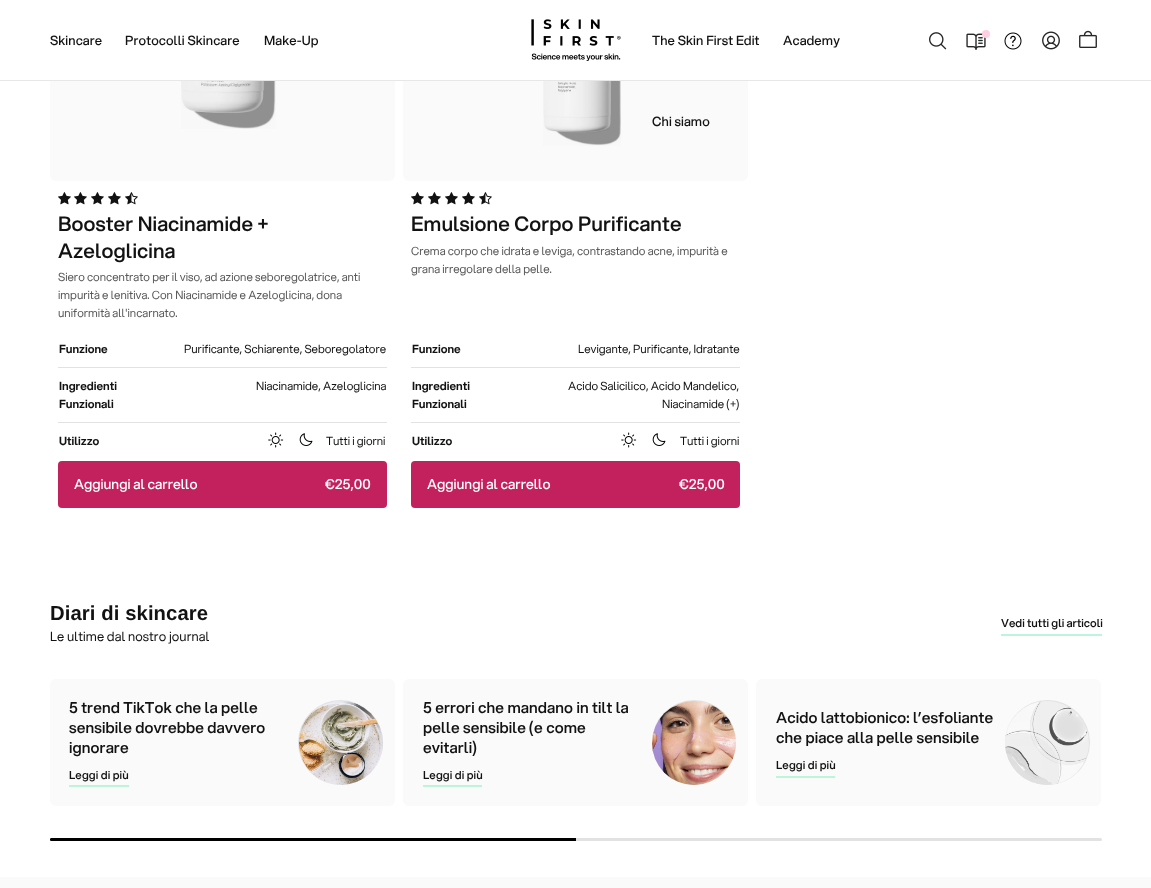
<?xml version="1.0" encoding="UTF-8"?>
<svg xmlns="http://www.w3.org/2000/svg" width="1151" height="888">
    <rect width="100%" height="100%" fill="#FFFFFF"/>
    <rect x="50" y="-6" width="345" height="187" rx="6" fill="#FAFAFA"/>
    <rect x="403" y="-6" width="345" height="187" rx="6" fill="#FAFAFA"/>
    <rect x="50" y="0" width="698" height="80" fill="#FFFFFF"/>
    <text x="50" y="45" font-family="'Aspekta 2'" font-size="12.9" font-weight="500" letter-spacing="0.1" fill="#121212">Skincare</text>
    <text x="125" y="45" font-family="'Aspekta 2'" font-size="12.9" font-weight="500" letter-spacing="0.1" fill="#121212">Protocolli Skincare</text>
    <text x="264" y="45" font-family="'Aspekta 2'" font-size="12.9" font-weight="500" letter-spacing="0.1" fill="#121212">Make-Up</text>
    <image x="531" y="19" width="90" height="42" href="img_01.png"/>
    <text x="652" y="45" font-family="'Aspekta 2'" font-size="12.9" font-weight="500" letter-spacing="0.1" fill="#121212">The Skin First Edit</text>
    <text x="783" y="45" font-family="'Aspekta 2'" font-size="12.9" font-weight="500" letter-spacing="0.1" fill="#121212">Academy</text>
    <text x="652" y="126" font-family="'Aspekta 2'" font-size="12.9" font-weight="500" letter-spacing="0.1" fill="#121212">Chi siamo</text>
    <image x="929" y="32" width="18" height="18" href="img_02.png"/>
    <image x="966" y="33" width="20" height="17" href="img_03.png"/>
    <circle cx="986" cy="34" r="4" fill="#FFCFE1"/>
    <image x="1004" y="32" width="18" height="18" href="img_04.png"/>
    <image x="1042" y="31" width="18" height="19" href="img_05.png"/>
    <image x="1079" y="30" width="18" height="18" href="img_06.png"/>
    <rect x="0" y="80" width="1151" height="1" fill="#E7E7E7"/>
    <image x="181" y="81" width="95" height="48" href="img_07.png"/>
    <image x="58" y="192" width="13" height="13" href="img_08.png"/>
    <image x="74" y="192" width="13" height="13" href="img_08.png"/>
    <image x="91" y="192" width="13" height="13" href="img_08.png"/>
    <image x="108" y="192" width="13" height="13" href="img_08.png"/>
    <image x="125" y="192" width="13" height="13" href="img_09.png"/>
    <text font-family="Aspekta" font-size="20.25" font-weight="500" letter-spacing="0.1" fill="#121212">
        <tspan x="58" y="231">Booster Niacinamide +</tspan>
        <tspan x="58" y="258">Azeloglicina</tspan>
    </text>
    <text font-family="Aspekta" font-size="11.4" fill="#595959">
        <tspan x="58" y="281">Siero concentrato per il viso, ad azione seboregolatrice, anti</tspan>
        <tspan x="58" y="299">impurità e lenitiva. Con Niacinamide e Azeloglicina, dona</tspan>
        <tspan x="58" y="317">uniformità all'incarnato.</tspan>
    </text>
    <rect x="58" y="367" width="329" height="1" fill="#E2E2E2"/>
    <text x="59" y="353" font-family="Aspekta" font-size="11.4" font-weight="600" fill="#121212">Funzione</text>
    <text x="184" y="353" font-family="Aspekta" font-size="11.4" fill="#121212">Purificante, Schiarente, Seboregolatore</text>
    <rect x="58" y="422" width="329" height="1" fill="#E2E2E2"/>
    <text font-family="Aspekta" font-size="11.4" font-weight="600" fill="#121212">
        <tspan x="59" y="390">Ingredienti</tspan>
        <tspan x="59" y="408">Funzionali</tspan>
    </text>
    <text x="256" y="390" font-family="Aspekta" font-size="11.4" fill="#121212">Niacinamide, Azeloglicina</text>
    <text x="59" y="445" font-family="Aspekta" font-size="11.4" font-weight="600" fill="#121212">Utilizzo</text>
    <image x="268" y="432" width="16" height="16" href="img_10.png"/>
    <image x="299" y="433" width="14" height="13" href="img_11.png"/>
    <text x="326" y="445" font-family="Aspekta" font-size="11.4" fill="#121212">Tutti i giorni</text>
    <rect x="58" y="461" width="329" height="47" rx="4" fill="#C3205E"/>
    <text x="74" y="489" font-family="'Aspekta 2'" font-size="13.75" font-weight="500" fill="#FFFFFF">Aggiungi al carrello</text>
    <text x="325" y="489" font-family="'Aspekta 2'" font-size="13.75" font-weight="500" fill="#FFFFFF">€25,00</text>
    <image x="543" y="81" width="78" height="65" href="img_12.png"/>
    <image x="411" y="192" width="13" height="13" href="img_08.png"/>
    <image x="428" y="192" width="13" height="13" href="img_08.png"/>
    <image x="445" y="192" width="13" height="13" href="img_08.png"/>
    <image x="462" y="192" width="13" height="13" href="img_08.png"/>
    <image x="479" y="192" width="13" height="13" href="img_09.png"/>
    <text x="411" y="231" font-family="Aspekta" font-size="20.25" font-weight="500" letter-spacing="0.1" fill="#121212">Emulsione Corpo Purificante</text>
    <text font-family="Aspekta" font-size="11.4" fill="#595959">
        <tspan x="411" y="255">Crema corpo che idrata e leviga, contrastando acne, impurità e</tspan>
        <tspan x="411" y="273">grana irregolare della pelle.</tspan>
    </text>
    <rect x="411" y="367" width="329" height="1" fill="#E2E2E2"/>
    <text x="412" y="353" font-family="Aspekta" font-size="11.4" font-weight="600" fill="#121212">Funzione</text>
    <text x="578" y="353" font-family="Aspekta" font-size="11.4" fill="#121212">Levigante, Purificante, Idratante</text>
    <rect x="411" y="422" width="329" height="1" fill="#E2E2E2"/>
    <text font-family="Aspekta" font-size="11.4" font-weight="600" fill="#121212">
        <tspan x="412" y="390">Ingredienti</tspan>
        <tspan x="412" y="408">Funzionali</tspan>
    </text>
    <text x="568" y="390" font-family="Aspekta" font-size="11.4" fill="#121212">Acido Salicilico, Acido Mandelico,</text>
    <text x="662" y="408" font-family="Aspekta" font-size="11.4" fill="#121212">Niacinamide (+)</text>
    <text x="412" y="445" font-family="Aspekta" font-size="11.4" font-weight="600" fill="#121212">Utilizzo</text>
    <image x="621" y="432" width="16" height="16" href="img_10.png"/>
    <image x="652" y="433" width="14" height="13" href="img_11.png"/>
    <text x="680" y="445" font-family="Aspekta" font-size="11.4" fill="#121212">Tutti i giorni</text>
    <rect x="411" y="461" width="329" height="47" rx="4" fill="#C3205E"/>
    <text x="427" y="489" font-family="'Aspekta 2'" font-size="13.75" font-weight="500" fill="#FFFFFF">Aggiungi al carrello</text>
    <text x="679" y="489" font-family="'Aspekta 2'" font-size="13.75" font-weight="500" fill="#FFFFFF">€25,00</text>
    <text x="50" y="620" font-family="Liberation Sans" font-size="20.25" font-weight="700" letter-spacing="0.1" fill="#121212">Diari di skincare</text>
    <text x="50" y="641" font-family="Aspekta" font-size="12.9" letter-spacing="0.1" fill="#121212">Le ultime dal nostro journal</text>
    <text x="1001" y="627" font-family="Aspekta" font-size="11.25" font-weight="500" fill="#121212">Vedi tutti gli articoli</text>
    <rect x="1001" y="634" width="101" height="2" fill="#BDF4DC"/>
    <rect x="50" y="679" width="345" height="127" rx="6" fill="#FAFAFA"/>
    <text font-family="Aspekta" font-size="15.2" font-weight="500" letter-spacing="0.1" fill="#121212">
        <tspan x="69" y="713">5 trend TikTok che la pelle</tspan>
        <tspan x="69" y="733">sensibile dovrebbe davvero</tspan>
        <tspan x="69" y="753">ignorare</tspan>
    </text>
    <text x="69" y="779" font-family="Aspekta" font-size="11.25" font-weight="500" letter-spacing="0.1" fill="#121212">Leggi di più</text>
    <rect x="69" y="785" width="60" height="2" fill="#BDF4DC"/>
    <circle cx="340.5" cy="742.5" r="42.5" fill="#E3E3E3"/>
    <image x="299" y="701" width="84" height="84" href="img_13.png"/>
    <rect x="403" y="679" width="345" height="127" rx="6" fill="#FAFAFA"/>
    <text font-family="Aspekta" font-size="15.2" font-weight="500" letter-spacing="0.1" fill="#121212">
        <tspan x="423" y="713">5 errori che mandano in tilt la</tspan>
        <tspan x="423" y="733">pelle sensibile (e come</tspan>
        <tspan x="423" y="753">evitarli)</tspan>
    </text>
    <text x="423" y="779" font-family="Aspekta" font-size="11.25" font-weight="500" letter-spacing="0.1" fill="#121212">Leggi di più</text>
    <rect x="423" y="785" width="59" height="2" fill="#BDF4DC"/>
    <rect x="652" y="700" width="84" height="85" rx="42" fill="#E3E3E3"/>
    <image x="652" y="701" width="84" height="84" href="img_14.png"/>
    <rect x="756" y="679" width="345" height="127" rx="6" fill="#FAFAFA"/>
    <text font-family="Aspekta" font-size="15.2" font-weight="500" letter-spacing="0.1" fill="#121212">
        <tspan x="776" y="723">Acido lattobionico: l’esfoliante</tspan>
        <tspan x="776" y="743">che piace alla pelle sensibile</tspan>
    </text>
    <text x="776" y="769" font-family="Aspekta" font-size="11.25" font-weight="500" letter-spacing="0.1" fill="#121212">Leggi di più</text>
    <rect x="776" y="776" width="59" height="2" fill="#BDF4DC"/>
    <circle cx="1047.5" cy="742.5" r="42.5" fill="#E3E3E3"/>
    <image x="1005" y="701" width="84" height="84" href="img_15.png"/>
    <rect x="50" y="838" width="1052" height="3" rx="1.5" fill="#E2E2E2"/>
    <path d="M 51.5 838 H 576 V 841 H 51.5 C 50.5 841 50 840.5 50 839.5 C 50 838.5 50.5 838 51.5 838 Z" fill="#000000"/>
    <rect x="0" y="877" width="1151" height="11" fill="#FAFAFA"/>
</svg>
